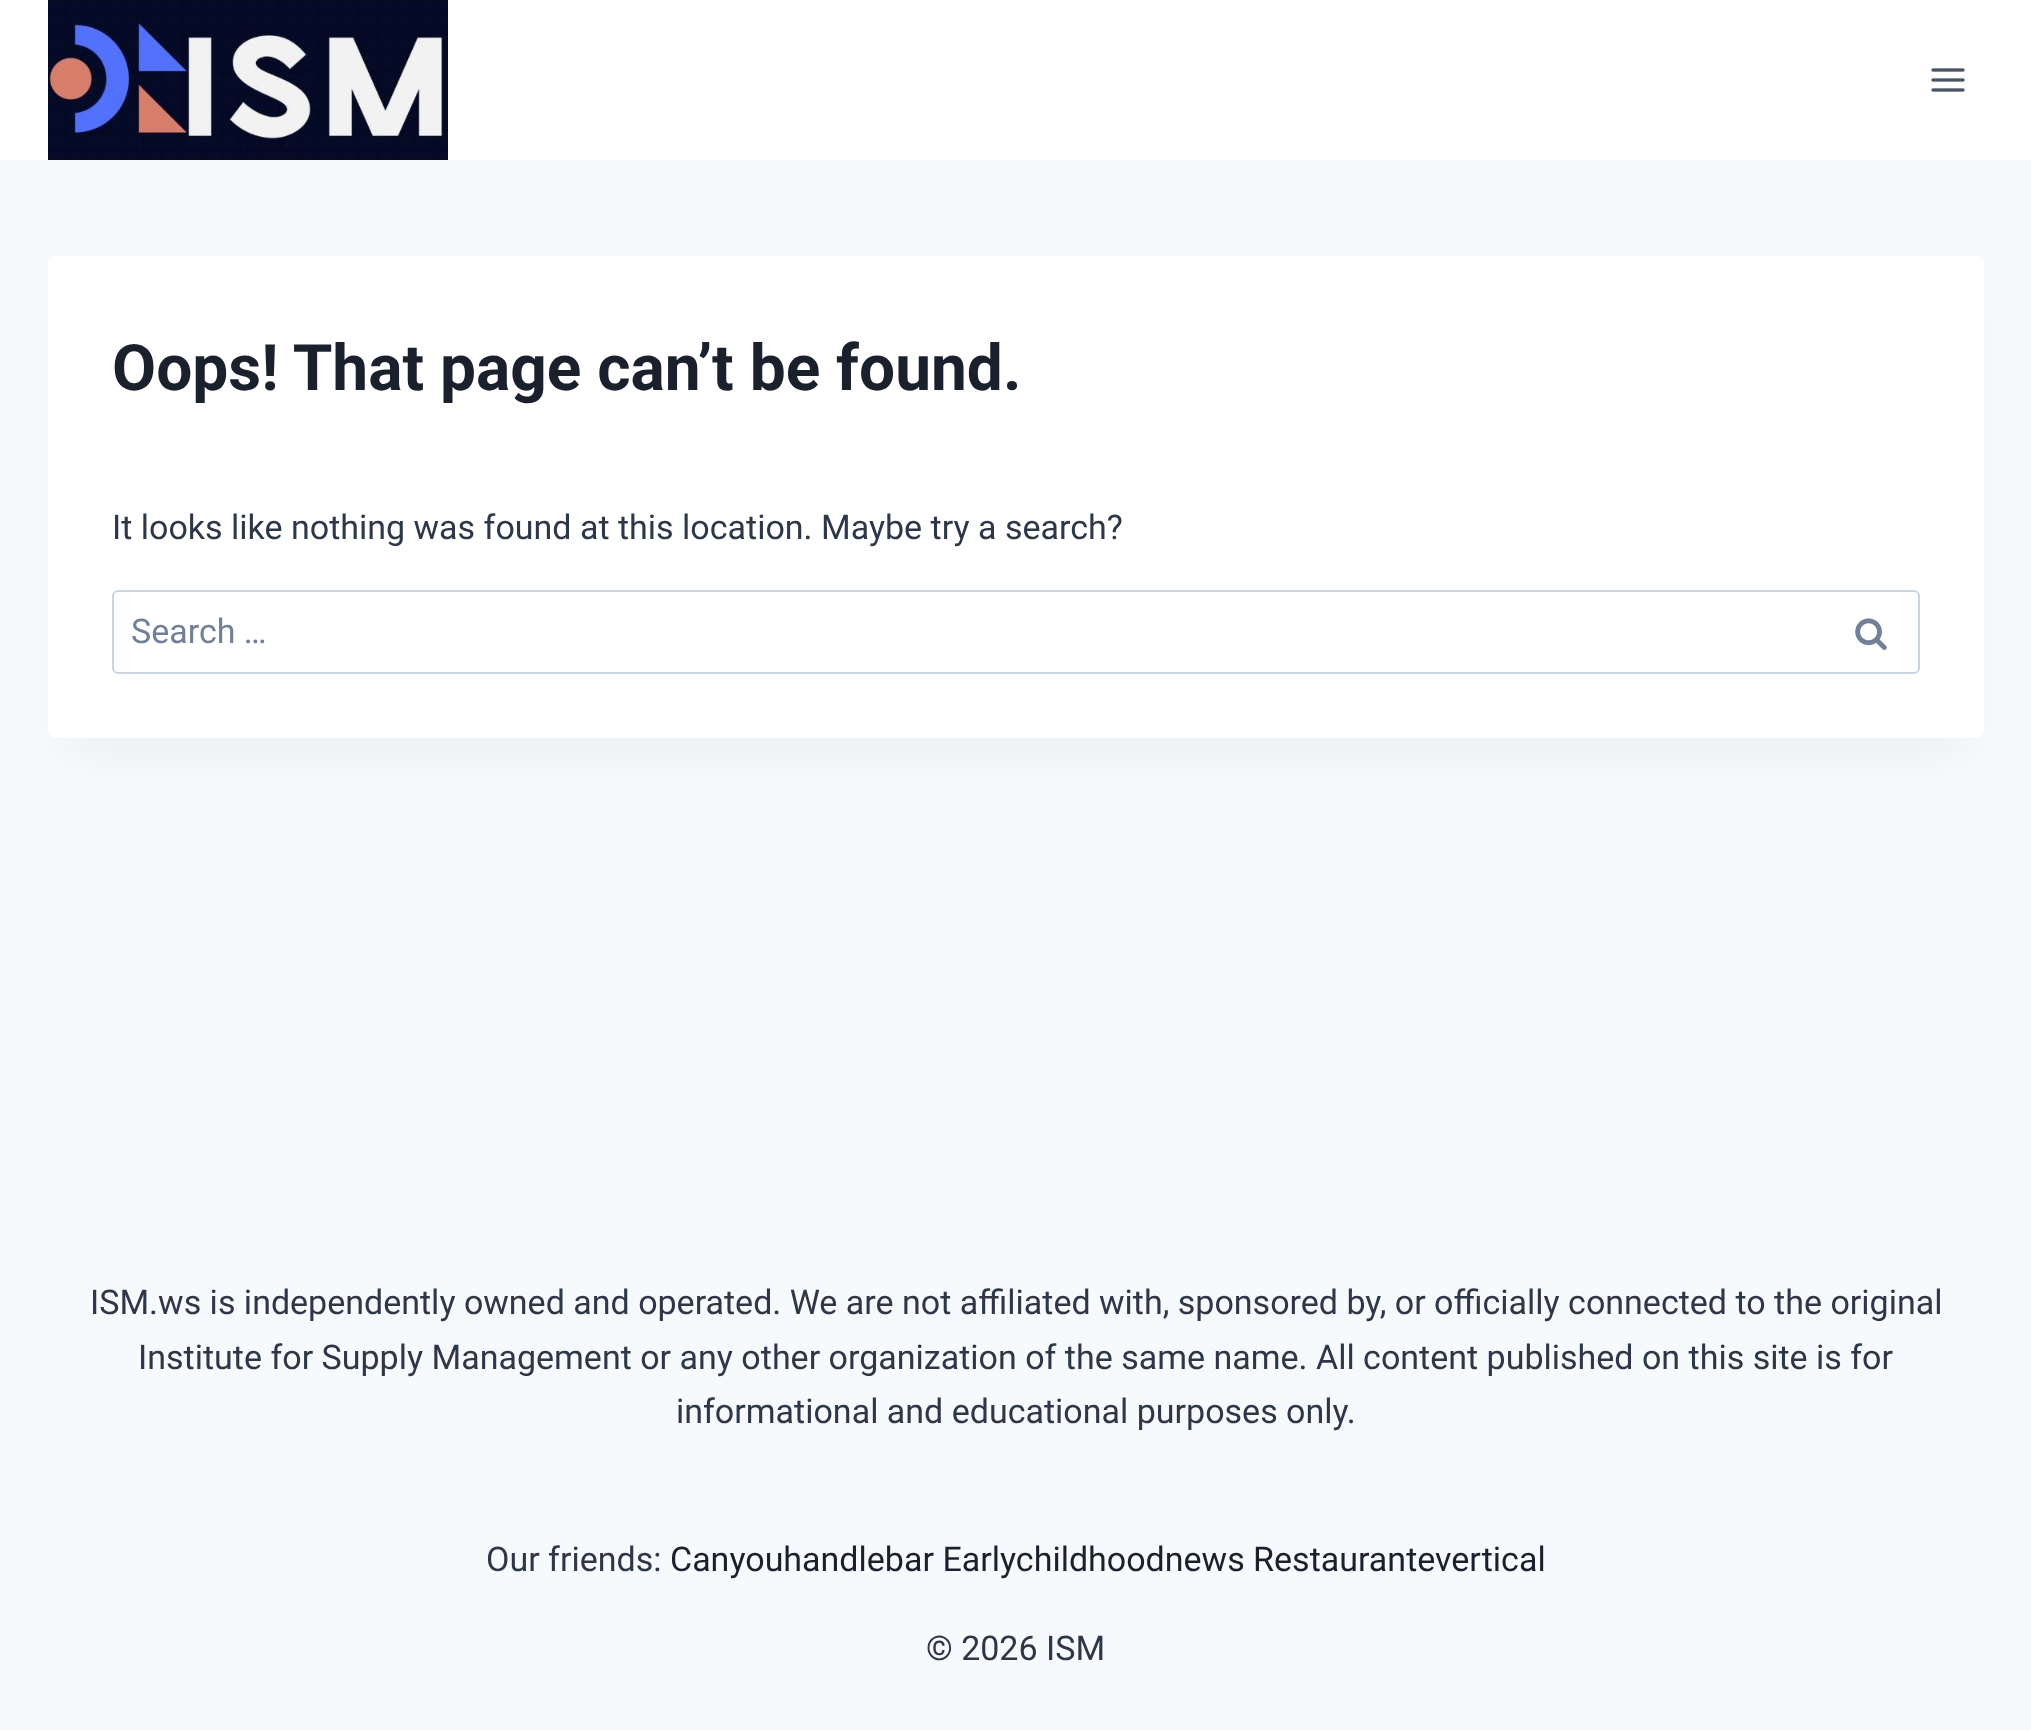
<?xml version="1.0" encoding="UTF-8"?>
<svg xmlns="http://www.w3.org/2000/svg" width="2031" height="1730">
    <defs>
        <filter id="blur1" x="-50%" y="-200%" width="200%" height="500%"><feGaussianBlur stdDeviation="25"/></filter>
    </defs>
    <rect width="100%" height="100%" fill="#F7FAFC"/>
    <rect x="0" y="0" width="2031" height="160" fill="#FFFFFF"/>
    <image x="48" y="0" width="400" height="160" href="img_01.png"/>
    <image x="1931" y="68" width="34" height="24" href="img_02.png"/>
    <rect x="68" y="306" width="1896" height="442" fill="#000000" fill-opacity="0.05" filter="url(#blur1)"/>
    <rect x="48" y="256" width="1936" height="482" rx="8" fill="#FFFFFF"/>
    <text x="112" y="390" font-family="Roboto" font-size="64" font-weight="700" fill="#1A202C">Oops! That page can’t be found.</text>
    <text x="112" y="539" font-family="Roboto" font-size="34" fill="#2D3748">It looks like nothing was found at this location. Maybe try a search?</text>
    <rect x="113" y="591" width="1806" height="82" rx="5" fill="none" stroke="#CBD5E0" stroke-width="2"/>
    <text x="131" y="643" font-family="Roboto" font-size="34" fill="#718096">Search …</text>
    <image x="1855" y="618" width="32" height="32" href="img_03.png"/>
    <text x="90" y="1314" font-family="Roboto" font-size="34" fill="#2D3748">ISM.ws is independently owned and operated. We are not affiliated with, sponsored by, or officially connected to the original</text>
    <text x="138" y="1369" font-family="Roboto" font-size="34" fill="#2D3748">Institute for Supply Management or any other organization of the same name. All content published on this site is for</text>
    <text x="676" y="1423" font-family="Roboto" font-size="34" fill="#2D3748">informational and educational purposes only.</text>
    <text x="486" y="1571" font-family="Roboto" font-size="34" fill="#2D3748">Our friends:</text>
    <text x="670" y="1571" font-family="Roboto" font-size="34" fill="#1A202C">Canyouhandlebar Earlychildhoodnews Restaurantevertical</text>
    <text x="926" y="1660" font-family="Roboto" font-size="34" fill="#2D3748">© 2026 ISM</text>
</svg>
